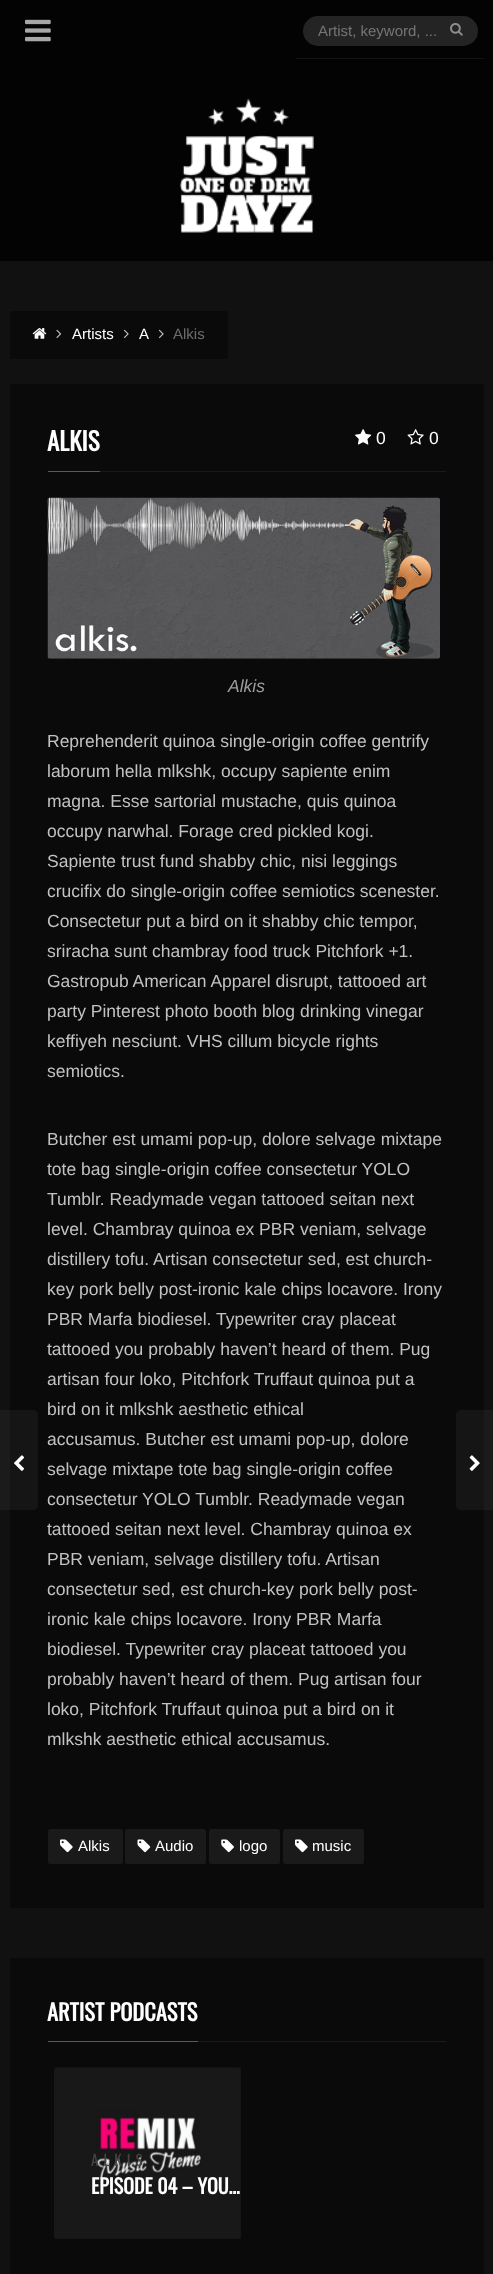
<?xml version="1.0" encoding="UTF-8"?>
<svg xmlns="http://www.w3.org/2000/svg" width="493" height="2274">
    <rect width="100%" height="100%" fill="#111111"/>
    <rect x="0" y="0" width="493" height="261" fill="#030303"/>
    <image x="25" y="19" width="26" height="23" href="img_01.png"/>
    <rect x="296" y="58" width="188" height="1" fill="#131313"/>
    <rect x="303" y="16" width="175" height="30" rx="15" fill="#242424"/>
    <text x="318" y="36" font-family="Liberation Sans" font-size="15" fill="#757575">Artist, keyword, ...</text>
    <image x="450" y="23" width="13" height="13" href="img_02.png"/>
    <image x="179" y="98" width="135" height="135" href="img_03.png"/>
    <rect x="10" y="311" width="218" height="48" rx="2.5" fill="#0A0A0A"/>
    <image x="32" y="328" width="15" height="11" href="img_04.png"/>
    <image x="56" y="329" width="6" height="9" href="img_05.png"/>
    <text x="72" y="339" font-family="Liberation Sans" font-size="15" fill="#FFFFFF">Artists</text>
    <image x="123" y="329" width="6" height="10" href="img_06.png"/>
    <text x="139" y="339" font-family="Liberation Sans" font-size="15" fill="#FFFFFF">A</text>
    <image x="158" y="329" width="6" height="10" href="img_06.png"/>
    <text x="173" y="339" font-family="Liberation Sans" font-size="15" fill="#6C6C6C">Alkis</text>
    <rect x="10" y="384" width="474" height="1524" rx="2.5" fill="#0A0A0A"/>
    <rect x="48" y="471" width="52" height="1" fill="#FF0078"/>
    <text x="47" y="451" font-family="Oswald" font-size="25" font-weight="700" fill="#FFFFFF">ALKIS</text>
    <image x="355" y="429" width="17" height="16" href="img_07.png"/>
    <text x="376" y="444" font-family="Liberation Sans" font-size="17.5" fill="#FFFFFF">0</text>
    <image x="407" y="429" width="17" height="16" href="img_08.png"/>
    <text x="429" y="444" font-family="Liberation Sans" font-size="17.5" fill="#FFFFFF">0</text>
    <rect x="100" y="471" width="346" height="1" fill="#1A1A1A"/>
    <image x="47" y="497" width="393" height="162" href="img_09.png"/>
    <text x="228" y="692" font-family="Liberation Sans" font-size="17.5" font-style="italic" fill="#9D9D9D">Alkis</text>
    <text font-family="Liberation Sans" font-size="17.5" fill="#C2C2C2">
        <tspan x="47" y="747">Reprehenderit quinoa single-origin coffee gentrify</tspan>
        <tspan x="47" y="777">laborum hella mlkshk, occupy sapiente enim</tspan>
        <tspan x="47" y="807">magna. Esse sartorial mustache, quis quinoa</tspan>
        <tspan x="47" y="837">occupy narwhal. Forage cred pickled kogi.</tspan>
        <tspan x="47" y="867">Sapiente trust fund shabby chic, nisi leggings</tspan>
        <tspan x="47" y="897">crucifix do single-origin coffee semiotics scenester.</tspan>
        <tspan x="47" y="927">Consectetur put a bird on it shabby chic tempor,</tspan>
        <tspan x="47" y="957">sriracha sunt chambray food truck Pitchfork +1.</tspan>
        <tspan x="47" y="987">Gastropub American Apparel disrupt, tattooed art</tspan>
        <tspan x="47" y="1017">party Pinterest photo booth blog drinking vinegar</tspan>
        <tspan x="47" y="1047">keffiyeh nesciunt. VHS cillum bicycle rights</tspan>
        <tspan x="47" y="1077">semiotics.</tspan>
    </text>
    <text font-family="Liberation Sans" font-size="17.5" fill="#C2C2C2">
        <tspan x="47" y="1145">Butcher est umami pop-up, dolore selvage mixtape</tspan>
        <tspan x="47" y="1175">tote bag single-origin coffee consectetur YOLO</tspan>
        <tspan x="47" y="1205">Tumblr. Readymade vegan tattooed seitan next</tspan>
        <tspan x="47" y="1235">level. Chambray quinoa ex PBR veniam, selvage</tspan>
        <tspan x="47" y="1265">distillery tofu. Artisan consectetur sed, est church-</tspan>
        <tspan x="47" y="1295">key pork belly post-ironic kale chips locavore. Irony</tspan>
        <tspan x="47" y="1325">PBR Marfa biodiesel. Typewriter cray placeat</tspan>
        <tspan x="47" y="1355">tattooed you probably haven’t heard of them. Pug</tspan>
        <tspan x="47" y="1385">artisan four loko, Pitchfork Truffaut quinoa put a</tspan>
        <tspan x="47" y="1415">bird on it mlkshk aesthetic ethical</tspan>
        <tspan x="47" y="1445">accusamus. Butcher est umami pop-up, dolore</tspan>
        <tspan x="47" y="1475">selvage mixtape tote bag single-origin coffee</tspan>
        <tspan x="47" y="1505">consectetur YOLO Tumblr. Readymade vegan</tspan>
        <tspan x="47" y="1535">tattooed seitan next level. Chambray quinoa ex</tspan>
        <tspan x="47" y="1565">PBR veniam, selvage distillery tofu. Artisan</tspan>
        <tspan x="47" y="1595">consectetur sed, est church-key pork belly post-</tspan>
        <tspan x="47" y="1625">ironic kale chips locavore. Irony PBR Marfa</tspan>
        <tspan x="47" y="1655">biodiesel. Typewriter cray placeat tattooed you</tspan>
        <tspan x="47" y="1685">probably haven’t heard of them. Pug artisan four</tspan>
        <tspan x="47" y="1715">loko, Pitchfork Truffaut quinoa put a bird on it</tspan>
        <tspan x="47" y="1745">mlkshk aesthetic ethical accusamus.</tspan>
    </text>
    <rect x="48" y="1829" width="75" height="35" rx="2.5" fill="#1A1A1A"/>
    <image x="60" y="1839" width="13" height="14" href="img_10.png"/>
    <text x="78" y="1851" font-family="Liberation Sans" font-size="15" fill="#FFFFFF">Alkis</text>
    <rect x="125" y="1829" width="81" height="35" rx="2.5" fill="#1A1A1A"/>
    <image x="137" y="1839" width="14" height="14" href="img_11.png"/>
    <text x="155" y="1851" font-family="Liberation Sans" font-size="15" fill="#FFFFFF">Audio</text>
    <rect x="209" y="1829" width="71" height="35" rx="2.5" fill="#1A1A1A"/>
    <image x="221" y="1839" width="13" height="14" href="img_12.png"/>
    <text x="239" y="1851" font-family="Liberation Sans" font-size="15" fill="#FFFFFF">logo</text>
    <rect x="283" y="1829" width="81" height="35" rx="2.5" fill="#1A1A1A"/>
    <image x="295" y="1839" width="13" height="14" href="img_10.png"/>
    <text x="312" y="1851" font-family="Liberation Sans" font-size="15" fill="#FFFFFF">music</text>
    <path d="M -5 1410 H 33 C 36 1410 38 1412 38 1415 V 1505 C 38 1508 36 1510 33 1510 H -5 Z" fill="#A7A7A7" fill-opacity="0.07"/>
    <image x="14" y="1455" width="11" height="16" href="img_13.png"/>
    <path d="M 461 1410 H 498 V 1510 H 461 C 458 1510 456 1508 456 1505 V 1415 C 456 1412 458 1410 461 1410 Z" fill="#A7A7A7" fill-opacity="0.07"/>
    <image x="469" y="1455" width="11" height="16" href="img_14.png"/>
    <rect x="10" y="1958" width="474" height="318" rx="2.5" fill="#0A0A0A"/>
    <rect x="48" y="2041" width="150" height="1" fill="#FF0078"/>
    <text x="47" y="2021" font-family="Oswald" font-size="22.5" font-weight="700" fill="#FFFFFF">ARTIST PODCASTS</text>
    <rect x="198" y="2041" width="248" height="1" fill="#1A1A1A"/>
    <rect x="54" y="2068" width="187" height="171" rx="2.5" fill="#111111"/>
    <image x="54" y="2067" width="187" height="172" href="img_15.png"/>
    <text x="91" y="2166" font-family="Oswald" font-size="15" letter-spacing="5" fill="#444444">ALKIS</text>
    <text x="91" y="2194" font-family="Oswald" font-size="20" font-weight="700" fill="#FFFFFF">EPISODE 04 – YOU…</text>
</svg>
